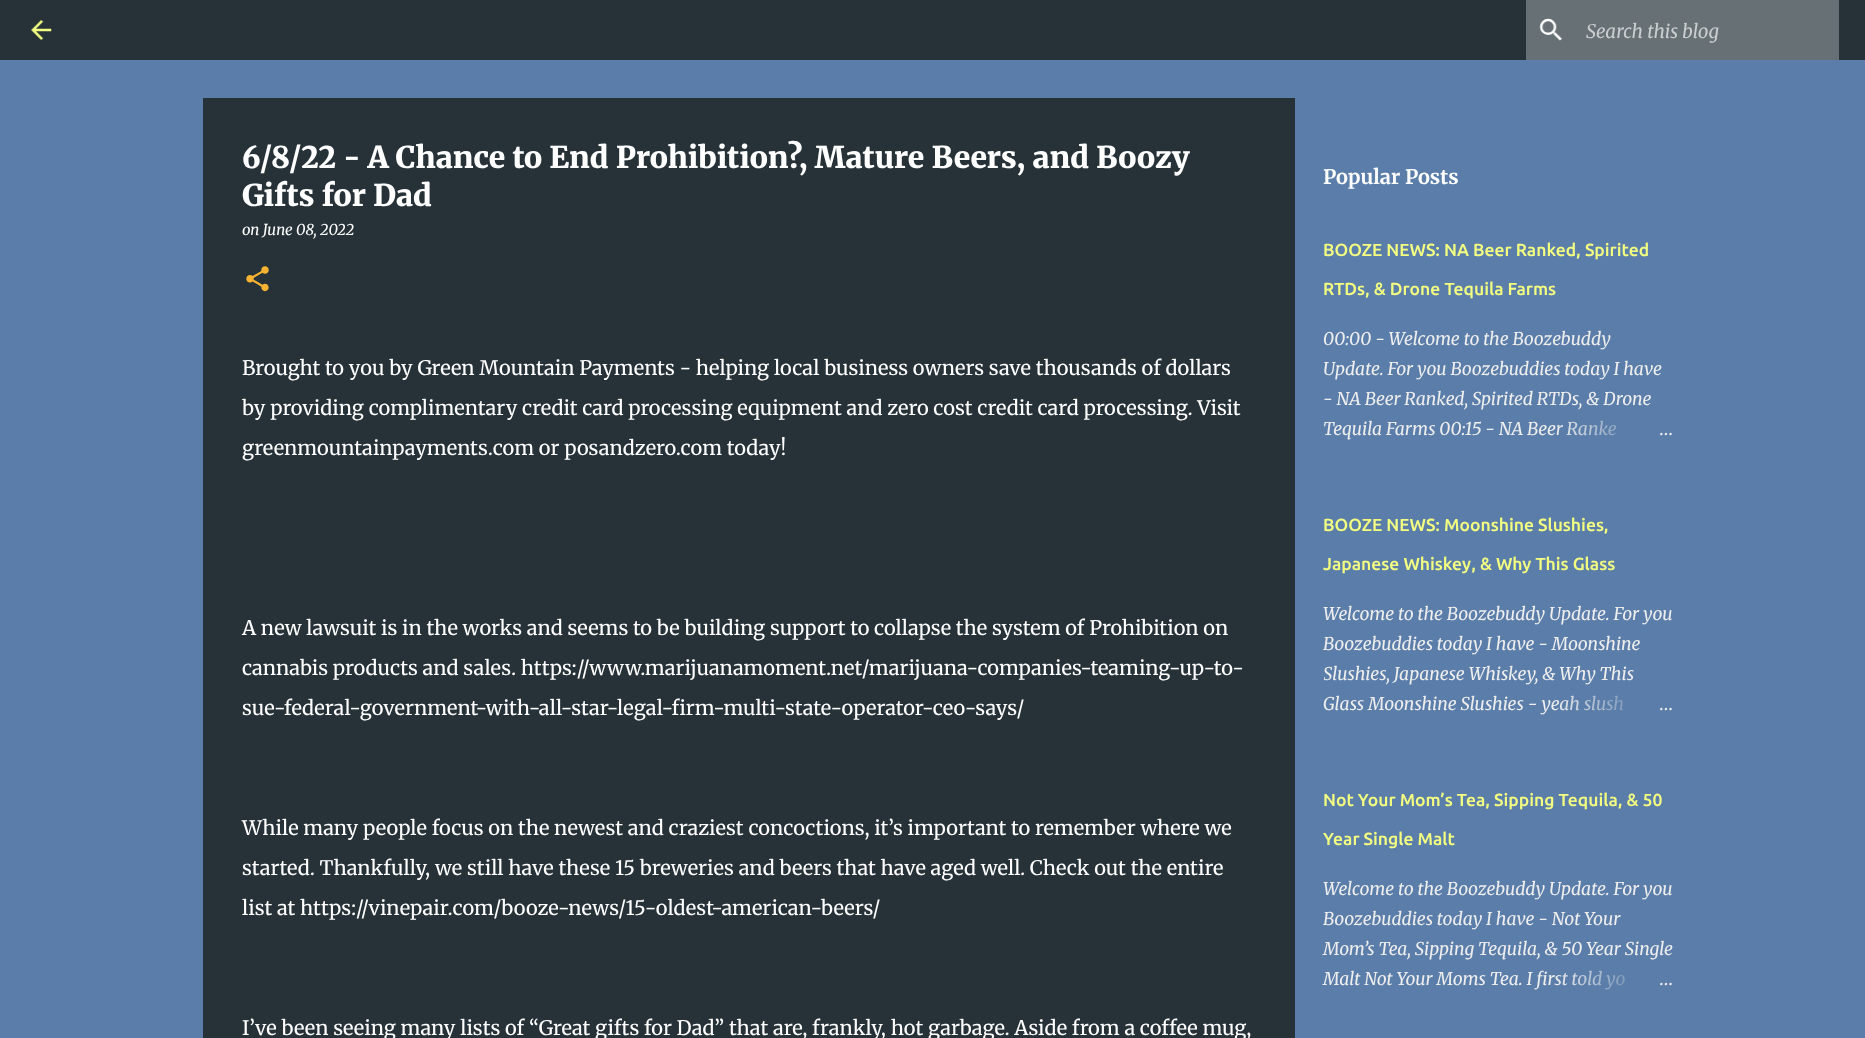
<?xml version="1.0" encoding="UTF-8"?>
<svg xmlns="http://www.w3.org/2000/svg" width="1865" height="1038">
    <defs>
        <linearGradient id="g1" gradientUnits="userSpaceOnUse" x1="1674" y1="429" x2="1554" y2="429"><stop offset="0" stop-color="#5A7DA9"/><stop offset="0.2" stop-color="#5A7DA9"/><stop offset="1" stop-color="#5A7DA9" stop-opacity="0"/></linearGradient>
        <clipPath id="clip1"><rect x="1324" y="599" width="350" height="120"/></clipPath>
        <linearGradient id="g2" gradientUnits="userSpaceOnUse" x1="1674" y1="704" x2="1554" y2="704"><stop offset="0" stop-color="#5A7DA9"/><stop offset="0.2" stop-color="#5A7DA9"/><stop offset="1" stop-color="#5A7DA9" stop-opacity="0"/></linearGradient>
        <linearGradient id="g3" gradientUnits="userSpaceOnUse" x1="1674" y1="979" x2="1554" y2="979"><stop offset="0" stop-color="#5A7DA9"/><stop offset="0.2" stop-color="#5A7DA9"/><stop offset="1" stop-color="#5A7DA9" stop-opacity="0"/></linearGradient>
    </defs>
    <rect width="100%" height="100%" fill="#5A7DA9"/>
    <rect x="0" y="0" width="1865" height="60" fill="#263238"/>
    <image x="31" y="20" width="21" height="20" href="img_01.png"/>
    <rect x="1526" y="0" width="313" height="60" fill="#677074"/>
    <image x="1539" y="18" width="24" height="23" href="img_02.png"/>
    <text x="1586" y="38" font-family="Merriweather" font-size="18.75" font-weight="300" font-style="italic" fill="#CBCED0">Search this blog</text>
    <rect x="203" y="98" width="1092" height="940" fill="#263238"/>
    <text font-family="Merriweather" font-size="30" font-weight="900" fill="#FFFFFF">
        <tspan x="242" y="168">6/8/22 - A Chance to End Prohibition?, Mature Beers, and Boozy</tspan>
        <tspan x="242" y="206">Gifts for Dad</tspan>
    </text>
    <text x="242" y="235" font-family="Merriweather" font-size="15" font-weight="300" font-style="italic" fill="#FFFFFF">on June 08, 2022</text>
    <image x="246" y="266" width="23" height="26" href="img_03.png"/>
    <text x="242" y="375" font-family="Merriweather" font-size="20" fill="#FFFFFF">Brought to you by Green Mountain Payments - helping local business owners save thousands of dollars</text>
    <text x="242" y="415" font-family="Merriweather" font-size="20" fill="#FFFFFF">by providing complimentary credit card processing equipment and zero cost credit card processing. Visit</text>
    <text x="242" y="455" font-family="Merriweather" font-size="20" fill="#FFFFFF">greenmountainpayments.com or posandzero.com today!</text>
    <text x="242" y="635" font-family="Merriweather" font-size="20" fill="#FFFFFF">A new lawsuit is in the works and seems to be building support to collapse the system of Prohibition on</text>
    <text x="242" y="675" font-family="Merriweather" font-size="20" fill="#FFFFFF">cannabis products and sales. https://www.marijuanamoment.net/marijuana-companies-teaming-up-to-</text>
    <text x="242" y="715" font-family="Merriweather" font-size="20" fill="#FFFFFF">sue-federal-government-with-all-star-legal-firm-multi-state-operator-ceo-says/</text>
    <text x="242" y="835" font-family="Merriweather" font-size="20" fill="#FFFFFF">While many people focus on the newest and craziest concoctions, it’s important to remember where we</text>
    <text x="242" y="875" font-family="Merriweather" font-size="20" fill="#FFFFFF">started. Thankfully, we still have these 15 breweries and beers that have aged well. Check out the entire</text>
    <text x="242" y="915" font-family="Merriweather" font-size="20" fill="#FFFFFF">list at https://vinepair.com/booze-news/15-oldest-american-beers/</text>
    <text x="242" y="1035" font-family="Merriweather" font-size="20" fill="#FFFFFF">I’ve been seeing many lists of “Great gifts for Dad” that are, frankly, hot garbage. Aside from a coffee mug,</text>
    <text x="1323" y="184" font-family="Merriweather" font-size="20" font-weight="700" fill="#FFFFFF">Popular Posts</text>
    <text x="1323" y="256" font-family="Ubuntu" font-size="17.5" font-weight="500" fill="#F4FF81">BOOZE NEWS: NA Beer Ranked, Spirited</text>
    <text x="1323" y="295" font-family="Ubuntu" font-size="17.5" font-weight="500" fill="#F4FF81">RTDs, &amp; Drone Tequila Farms</text>
    <text font-family="Merriweather" font-size="17.5" font-weight="300" font-style="italic" fill="#EEEEEE">
        <tspan x="1323" y="345">00:00 - Welcome to the Boozebuddy</tspan>
        <tspan x="1323" y="375">Update. For you Boozebuddies today I have</tspan>
        <tspan x="1323" y="405">- NA Beer Ranked, Spirited RTDs, &amp; Drone</tspan>
        <tspan x="1323" y="435">Tequila Farms 00:15 - NA Beer Ranke</tspan>
    </text>
    <rect x="1557" y="420" width="60" height="16" fill="url(#g1)"/>
    <text x="1659" y="435" font-family="Merriweather" font-size="17.5" fill="#EEEEEE">…</text>
    <text x="1323" y="531" font-family="Ubuntu" font-size="17.5" font-weight="500" fill="#F4FF81">BOOZE NEWS: Moonshine Slushies,</text>
    <text x="1323" y="570" font-family="Ubuntu" font-size="17.5" font-weight="500" fill="#F4FF81">Japanese Whiskey, &amp; Why This Glass</text>
    <text font-family="Merriweather" font-size="17.5" font-weight="300" font-style="italic" fill="#EEEEEE">
        <tspan x="1323" y="620">Welcome to the Boozebuddy Update. For you</tspan>
        <tspan x="1323" y="650">Boozebuddies today I have - Moonshine</tspan>
    </text>
    <g clip-path="url(#clip1)">
        <text x="1323" y="680" font-family="Merriweather" font-size="17.5" font-weight="300" font-style="italic" fill="#EEEEEE">Slushies, Japanese Whiskey, &amp; Why This</text>
    </g>
    <text x="1323" y="710" font-family="Merriweather" font-size="17.5" font-weight="300" font-style="italic" fill="#EEEEEE">Glass Moonshine Slushies - yeah slush</text>
    <rect x="1556" y="695" width="68" height="16" fill="url(#g2)"/>
    <text x="1659" y="710" font-family="Merriweather" font-size="17.5" fill="#EEEEEE">…</text>
    <text x="1323" y="806" font-family="Ubuntu" font-size="17.5" font-weight="500" fill="#F4FF81">Not Your Mom’s Tea, Sipping Tequila, &amp; 50</text>
    <text x="1323" y="845" font-family="Ubuntu" font-size="17.5" font-weight="500" fill="#F4FF81">Year Single Malt</text>
    <text font-family="Merriweather" font-size="17.5" font-weight="300" font-style="italic" fill="#EEEEEE">
        <tspan x="1323" y="895">Welcome to the Boozebuddy Update. For you</tspan>
        <tspan x="1323" y="925">Boozebuddies today I have - Not Your</tspan>
        <tspan x="1323" y="955">Mom’s Tea, Sipping Tequila, &amp; 50 Year Single</tspan>
        <tspan x="1323" y="985">Malt Not Your Moms Tea. I first told yo</tspan>
    </text>
    <rect x="1556" y="970" width="69" height="20" fill="url(#g3)"/>
    <text x="1659" y="985" font-family="Merriweather" font-size="17.5" fill="#EEEEEE">…</text>
</svg>
